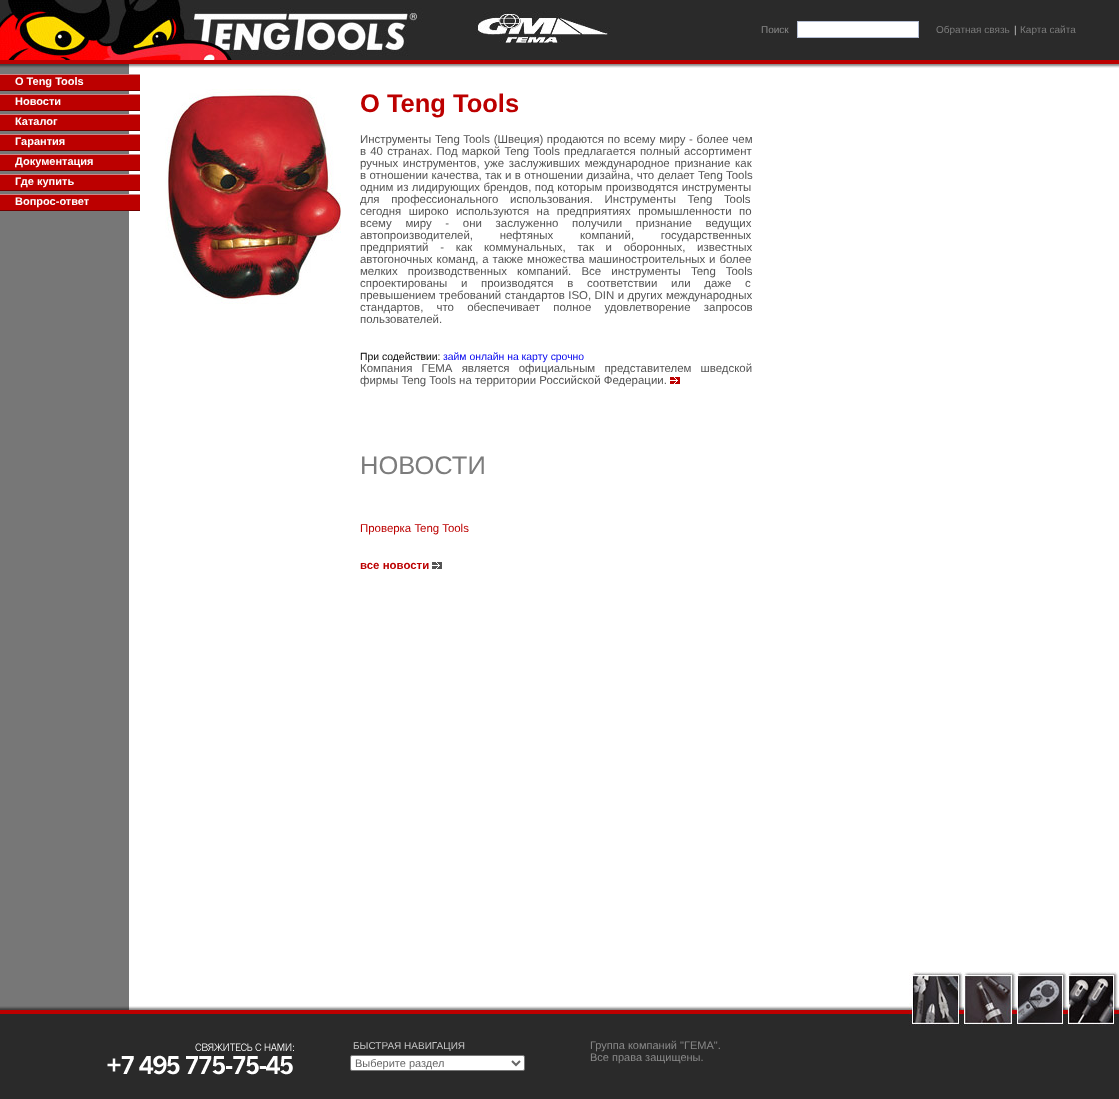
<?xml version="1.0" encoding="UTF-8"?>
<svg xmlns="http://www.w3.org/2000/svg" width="1119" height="1099">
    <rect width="100%" height="100%" fill="#FFFFFF"/>
    <rect x="0" y="70" width="129" height="934" fill="#777777"/>
    <rect x="423" y="0" width="696" height="60" fill="#2A2A2A"/>
    <rect x="0" y="60" width="1119" height="4" fill="#BC0000"/>
    <image x="0" y="0" width="423" height="60" href="img_01.png"/>
    <image x="475" y="11" width="135" height="32" href="img_02.png"/>
    <text x="761" y="33" font-family="Liberation Sans" font-size="10" fill="#8A8A8A">Поиск</text>
    <rect x="797.5" y="21.5" width="121" height="16" fill="#FFFFFF" stroke="#B6BFD5"/>
    <text x="936" y="33" font-family="Liberation Sans" font-size="10" fill="#7C7C7C">Обратная связь</text>
    <text x="1014" y="33" font-family="Liberation Sans" font-size="10" fill="#C5C5C5">|</text>
    <text x="1020" y="33" font-family="Liberation Sans" font-size="10" fill="#7C7C7C">Карта сайта</text>
    <image x="129" y="64" width="990" height="6" href="img_03.png"/>
    <image x="0" y="64" width="129" height="6" href="img_04.png"/>
    <rect x="0" y="75" width="140" height="15" fill="#BC0000"/>
    <rect x="0" y="74" width="140" height="1" fill="#CD8686"/>
    <rect x="0" y="90" width="140" height="1" fill="#710000"/>
    <text x="15" y="85" font-family="Liberation Sans" font-size="11" font-weight="700" fill="#FFFFFF">О Teng Tools</text>
    <rect x="0" y="95" width="140" height="15" fill="#BC0000"/>
    <rect x="0" y="94" width="140" height="1" fill="#CD8686"/>
    <rect x="0" y="110" width="140" height="1" fill="#710000"/>
    <text x="15" y="105" font-family="Liberation Sans" font-size="11" font-weight="700" fill="#FFFFFF">Новости</text>
    <rect x="0" y="115" width="140" height="15" fill="#BC0000"/>
    <rect x="0" y="114" width="140" height="1" fill="#CD8686"/>
    <rect x="0" y="130" width="140" height="1" fill="#710000"/>
    <text x="15" y="125" font-family="Liberation Sans" font-size="11" font-weight="700" fill="#FFFFFF">Каталог</text>
    <rect x="0" y="135" width="140" height="15" fill="#BC0000"/>
    <rect x="0" y="134" width="140" height="1" fill="#CD8686"/>
    <rect x="0" y="150" width="140" height="1" fill="#710000"/>
    <text x="15" y="145" font-family="Liberation Sans" font-size="11" font-weight="700" fill="#FFFFFF">Гарантия</text>
    <rect x="0" y="155" width="140" height="15" fill="#BC0000"/>
    <rect x="0" y="154" width="140" height="1" fill="#CD8686"/>
    <rect x="0" y="170" width="140" height="1" fill="#710000"/>
    <text x="15" y="165" font-family="Liberation Sans" font-size="11" font-weight="700" fill="#FFFFFF">Документация</text>
    <rect x="0" y="175" width="140" height="15" fill="#BC0000"/>
    <rect x="0" y="174" width="140" height="1" fill="#CD8686"/>
    <rect x="0" y="190" width="140" height="1" fill="#710000"/>
    <text x="15" y="185" font-family="Liberation Sans" font-size="11" font-weight="700" fill="#FFFFFF">Где купить</text>
    <rect x="0" y="195" width="140" height="15" fill="#BC0000"/>
    <rect x="0" y="194" width="140" height="1" fill="#CD8686"/>
    <rect x="0" y="210" width="140" height="1" fill="#710000"/>
    <text x="15" y="205" font-family="Liberation Sans" font-size="11" font-weight="700" fill="#FFFFFF">Вопрос-ответ</text>
    <image x="165" y="89" width="176" height="215" href="img_05.png"/>
    <text x="360" y="112" font-family="Liberation Sans" font-size="25.5" font-weight="700" fill="#BC0000">О Teng Tools</text>
    <text font-family="Liberation Sans" font-size="11.45" fill="#545454">
        <tspan x="360" y="143" word-spacing="0.5">Инструменты Teng Tools (Швеция) продаются по всему миру - более чем</tspan>
        <tspan x="360" y="155" word-spacing="1">в 40 странах. Под маркой Teng Tools предлагается полный ассортимент</tspan>
        <tspan x="360" y="167" word-spacing="1.5">ручных инструментов, уже заслуживших международное признание как</tspan>
        <tspan x="360" y="179" word-spacing="0.25">в отношении качества, так и в отношении дизайна, что делает Teng Tools</tspan>
        <tspan x="360" y="191" word-spacing="0.25">одним из лидирующих брендов, под которым производятся инструменты</tspan>
        <tspan x="360" y="203" word-spacing="8.5">для профессионального использования. Инструменты Teng Tools</tspan>
        <tspan x="360" y="215" word-spacing="4.25">сегодня широко используются на предприятиях промышленности по</tspan>
        <tspan x="360" y="227" word-spacing="10.5">всему миру - они заслуженно получили признание ведущих</tspan>
        <tspan x="360" y="239" word-spacing="23.5">автопроизводителей, нефтяных компаний, государственных</tspan>
        <tspan x="360" y="251" word-spacing="8.5">предприятий - как коммунальных, так и оборонных, известных</tspan>
        <tspan x="360" y="263" word-spacing="0.75">автогоночных команд, а также множества машиностроительных и более</tspan>
        <tspan x="360" y="275" word-spacing="7">мелких производственных компаний. Все инструменты Teng Tools</tspan>
        <tspan x="360" y="287" word-spacing="10.5">спроектированы и производятся в соответствии или даже с</tspan>
        <tspan x="360" y="299" word-spacing="0.25">превышением требований стандартов ISO, DIN и других международных</tspan>
        <tspan x="360" y="311" word-spacing="10">стандартов, что обеспечивает полное удовлетворение запросов</tspan>
        <tspan x="360" y="323">пользователей.</tspan>
    </text>
    <text x="360" y="360" font-family="Liberation Sans" font-size="10.4" fill="#000000">При содействии:</text>
    <text x="443" y="360" font-family="Liberation Sans" font-size="10.4" fill="#0000EE">займ онлайн на карту срочно</text>
    <text font-family="Liberation Sans" font-size="11.45" fill="#545454">
        <tspan x="360" y="372" word-spacing="6">Компания ГЕМА является официальным представителем шведской</tspan>
        <tspan x="360" y="384">фирмы Teng Tools на территории Российской Федерации.</tspan>
    </text>
    <image x="670" y="377" width="10" height="7" href="img_06.png"/>
    <text x="360" y="474" font-family="Liberation Sans" font-size="25.5" fill="#7C7C7C">НОВОСТИ</text>
    <text x="360" y="532" font-family="Liberation Sans" font-size="11.45" fill="#BC0000">Проверка Teng Tools</text>
    <text x="360" y="569" font-family="Liberation Sans" font-size="11.45" font-weight="700" fill="#BC0000">все новости</text>
    <image x="432" y="562" width="10" height="7" href="img_07.png"/>
    <image x="0" y="1004" width="129" height="6" href="img_08.png"/>
    <image x="129" y="1004" width="780" height="6" href="img_09.png"/>
    <rect x="0" y="1014" width="1119" height="85" fill="#2A2A2A"/>
    <image x="909" y="971" width="210" height="55" href="img_10.png"/>
    <rect x="0" y="1010" width="909" height="4" fill="#BC0000"/>
    <image x="107" y="1043" width="187" height="32" href="img_11.png"/>
    <text x="353" y="1049" font-family="Liberation Sans" font-size="10" fill="#C5C5C5">БЫСТРАЯ НАВИГАЦИЯ</text>
    <rect x="350.5" y="1055.5" width="174" height="15" rx="1.5" fill="#FFFFFF" stroke="#767676"/>
    <path d="M 512 1061 L 516 1065 L 520 1061" fill="none" stroke="#666666" stroke-width="2"/>
    <text x="355" y="1067" font-family="Liberation Sans" font-size="11" fill="#666666">Выберите раздел</text>
    <text font-family="Liberation Sans" font-size="11" fill="#8A8A8A">
        <tspan x="590" y="1049">Группа компаний "ГЕМА".</tspan>
        <tspan x="590" y="1061">Все права защищены.</tspan>
    </text>
</svg>
